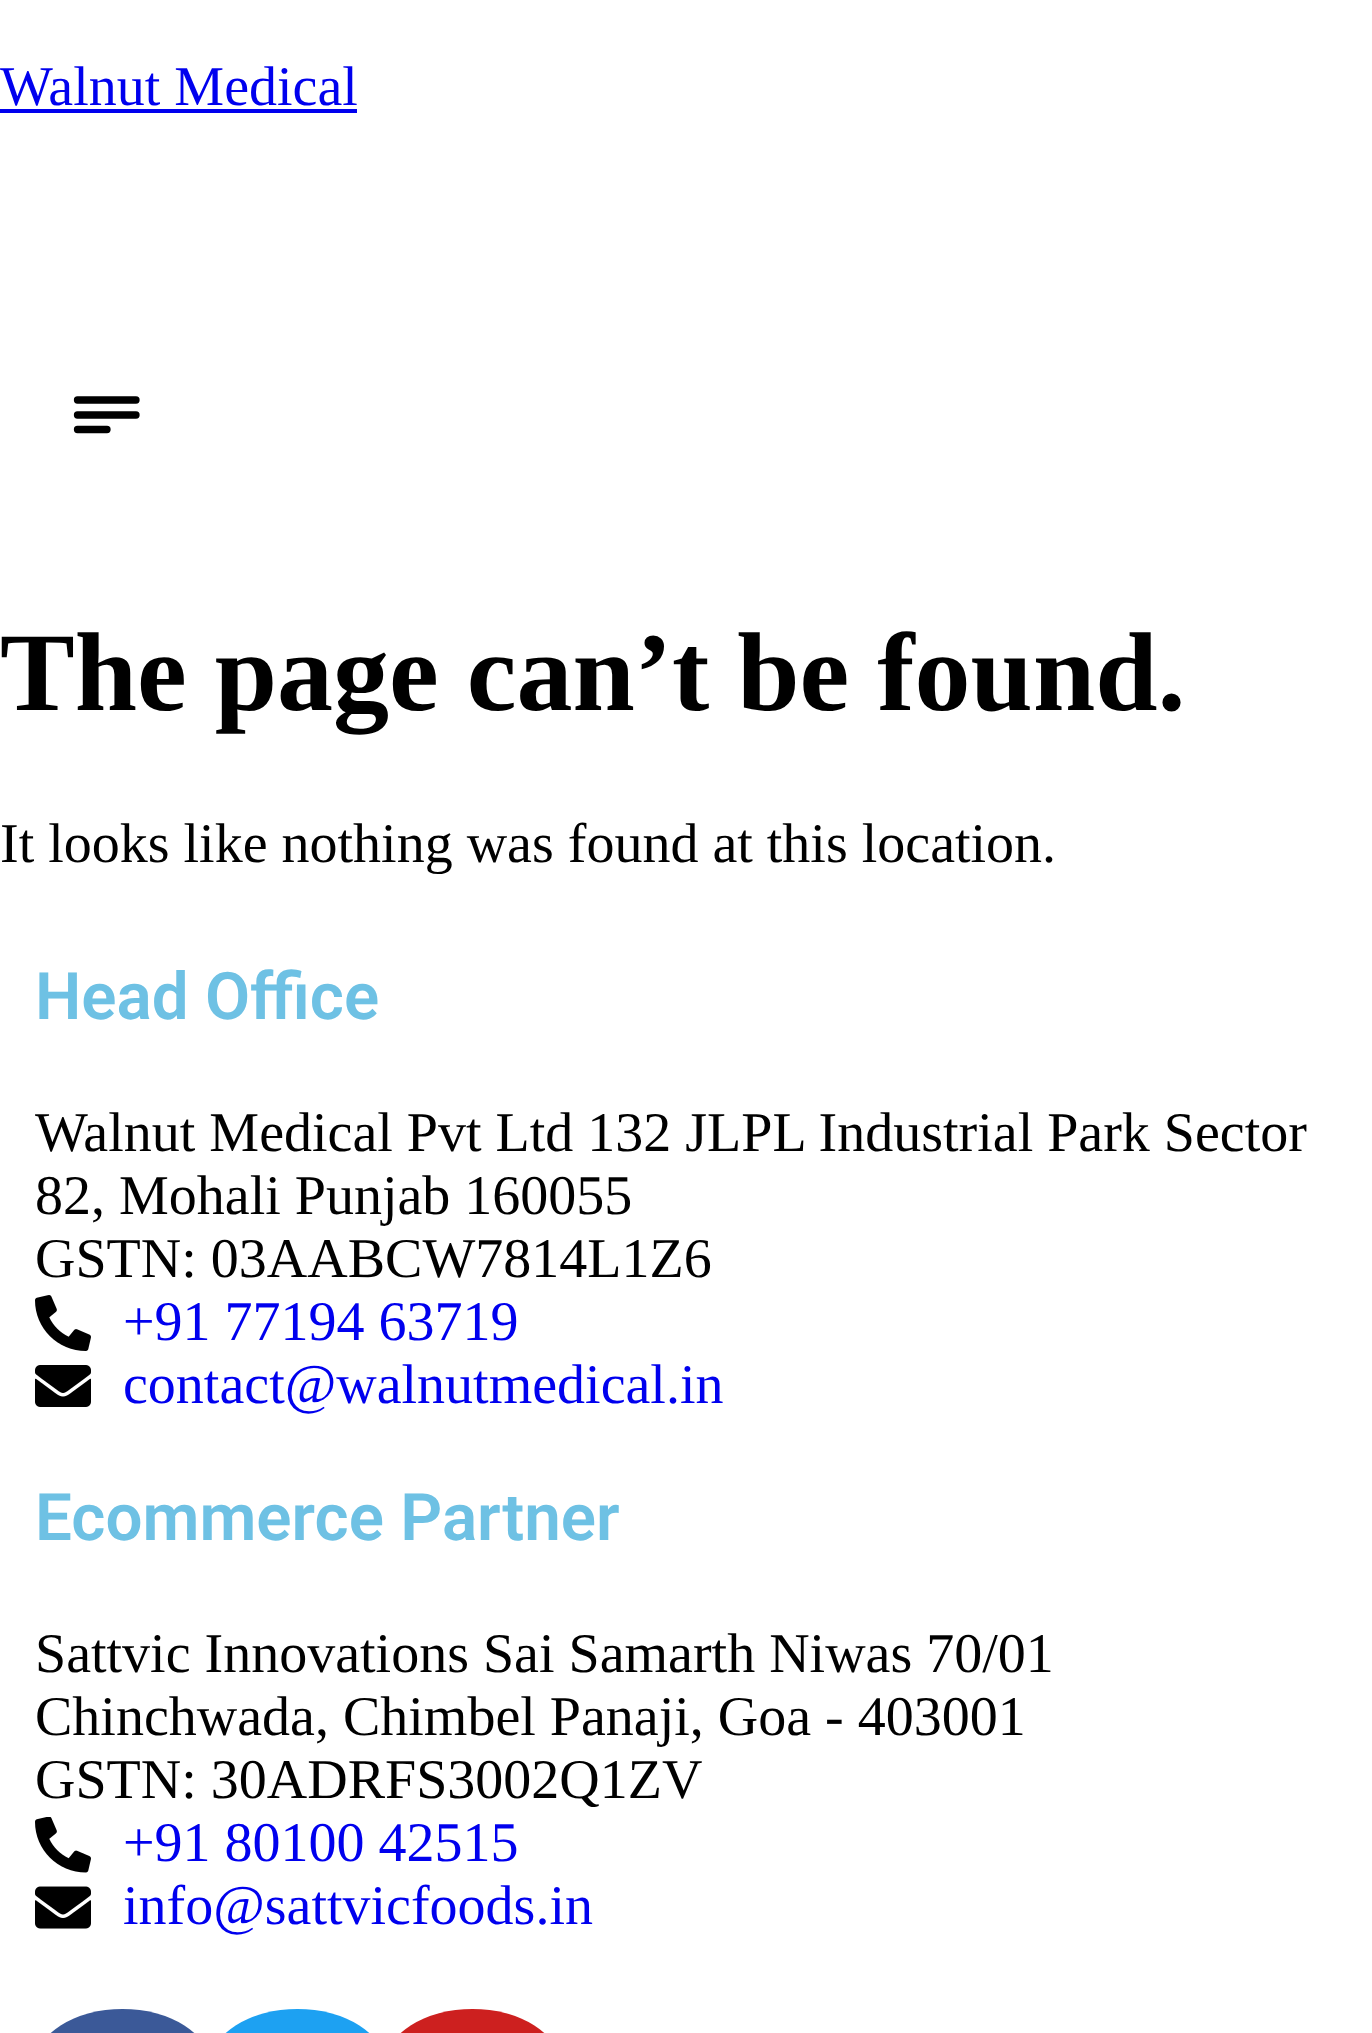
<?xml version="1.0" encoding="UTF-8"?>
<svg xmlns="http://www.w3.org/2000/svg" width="1372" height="2033">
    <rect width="100%" height="100%" fill="#FFFFFF"/>
    <text x="0" y="105" font-family="Liberation Serif" font-size="56" fill="#0000EE">Walnut Medical</text>
    <rect x="0" y="109" width="357" height="4" fill="#0000EE"/>
    <path d="M 77.5 415 H 136 M 77.5 400 H 136 M 77.5 429.5 H 107" fill="none" stroke="#000000" stroke-width="7.3" stroke-linecap="round" stroke-linejoin="round"/>
    <text x="0" y="710" font-family="Liberation Serif" font-size="112" font-weight="700" fill="#000000">The page can’t be found.</text>
    <text x="0" y="862" font-family="Liberation Serif" font-size="56" fill="#000000">It looks like nothing was found at this location.</text>
    <text x="35" y="1019" font-family="Roboto" font-size="65.5" font-weight="600" fill="#6EC1E4">Head Office</text>
    <text font-family="Liberation Serif" font-size="56" fill="#000000">
        <tspan x="35" y="1151">Walnut Medical Pvt Ltd 132 JLPL Industrial Park Sector</tspan>
        <tspan x="35" y="1214">82, Mohali Punjab 160055</tspan>
        <tspan x="35" y="1277">GSTN: 03AABCW7814L1Z6</tspan>
    </text>
    <image x="35" y="1295" width="56" height="56" href="img_01.png"/>
    <text x="123" y="1340" font-family="Liberation Serif" font-size="56" fill="#0000EE">+91 77194 63719</text>
    <image x="35" y="1365" width="56" height="42" href="img_02.png"/>
    <text x="123" y="1403" font-family="Liberation Serif" font-size="56" fill="#0000EE">contact@walnutmedical.in</text>
    <text x="35" y="1540" font-family="Roboto" font-size="65.5" font-weight="600" fill="#6EC1E4">Ecommerce Partner</text>
    <text font-family="Liberation Serif" font-size="56" fill="#000000">
        <tspan x="35" y="1672">Sattvic Innovations Sai Samarth Niwas 70/01</tspan>
        <tspan x="35" y="1735">Chinchwada, Chimbel Panaji, Goa - 403001</tspan>
        <tspan x="35" y="1798">GSTN: 30ADRFS3002Q1ZV</tspan>
    </text>
    <image x="35" y="1817" width="56" height="56" href="img_03.png"/>
    <text x="123" y="1861" font-family="Liberation Serif" font-size="56" fill="#0000EE">+91 80100 42515</text>
    <image x="35" y="1886" width="56" height="43" href="img_04.png"/>
    <text x="123" y="1924" font-family="Liberation Serif" font-size="56" fill="#0000EE">info@sattvicfoods.in</text>
    <rect x="35" y="2009" width="175" height="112" rx="87.5" fill="#3B5998"/>
    <rect x="210" y="2009" width="175" height="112" rx="87.5" fill="#1DA1F2"/>
    <rect x="385" y="2009" width="175" height="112" rx="87.5" fill="#CD201F"/>
</svg>
